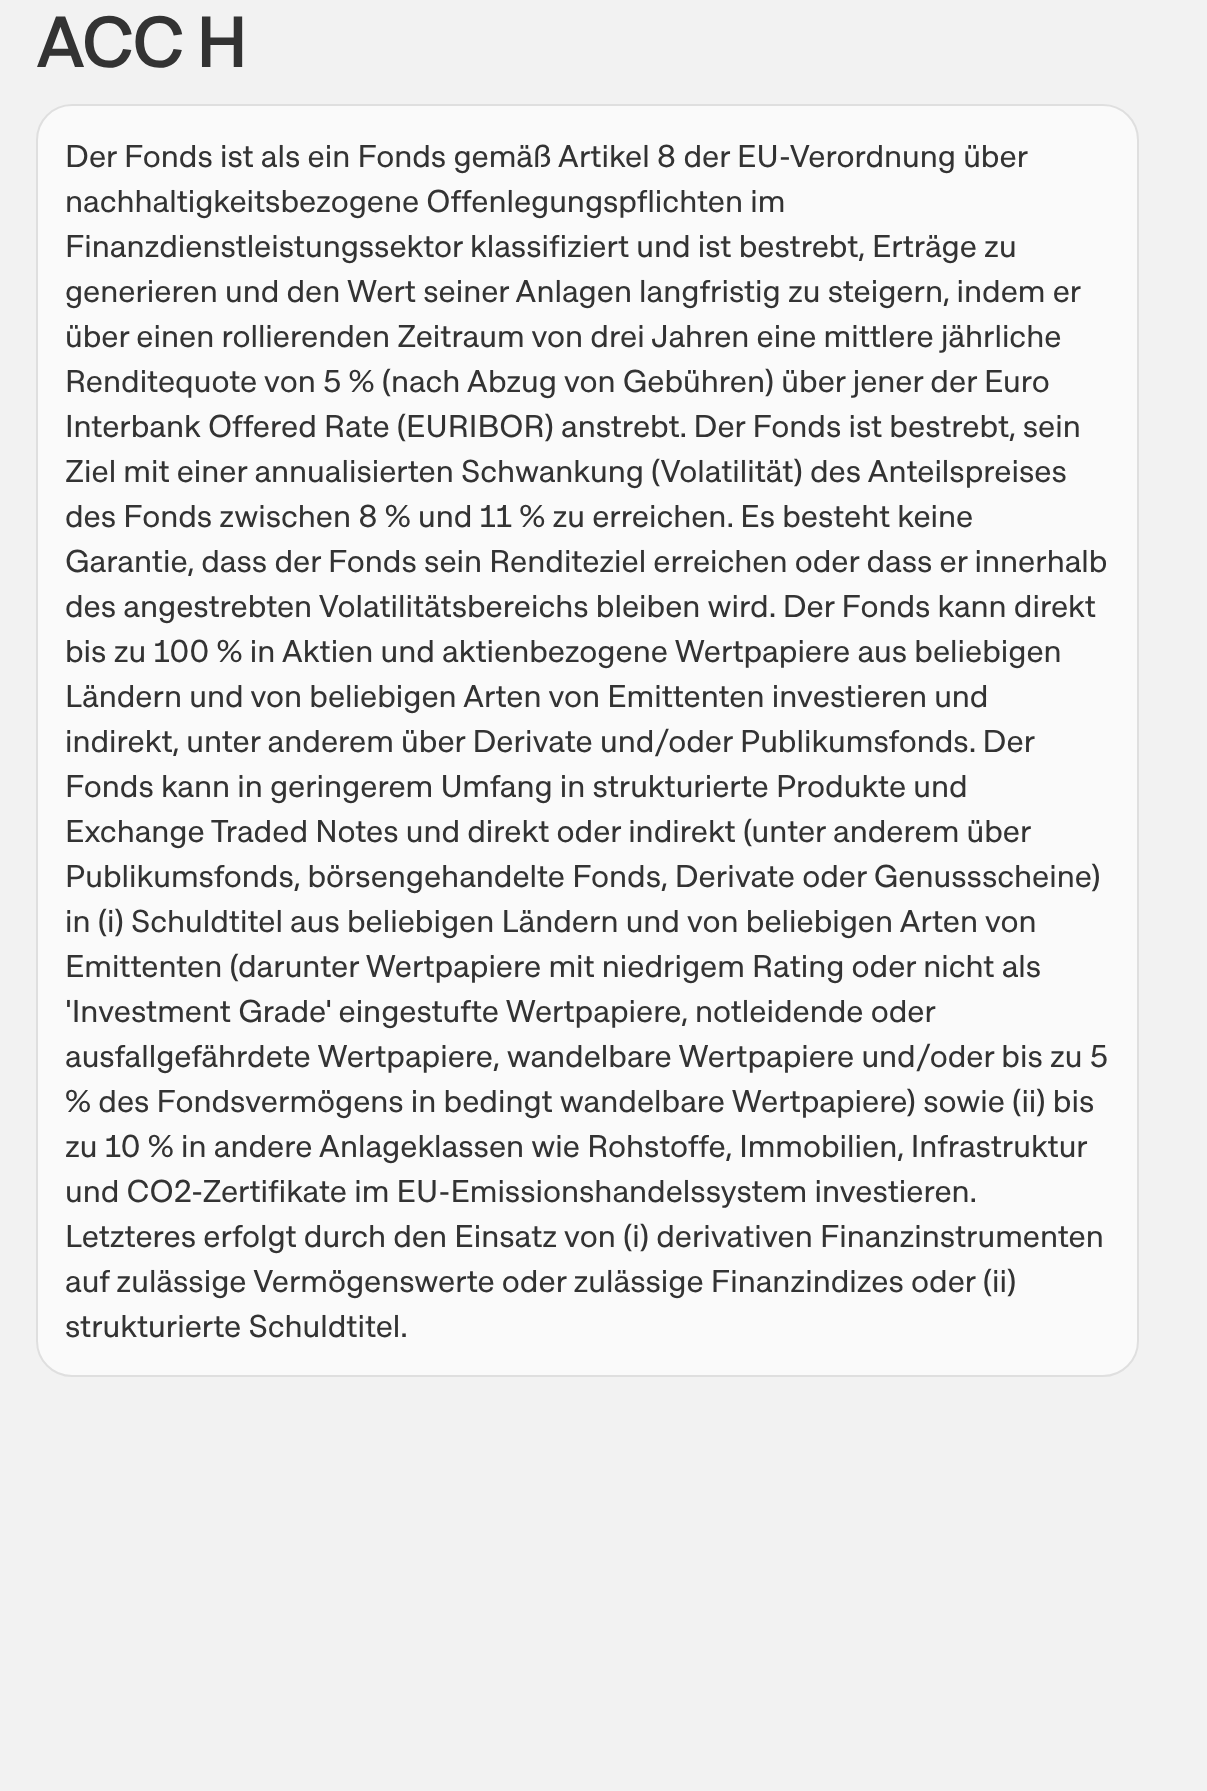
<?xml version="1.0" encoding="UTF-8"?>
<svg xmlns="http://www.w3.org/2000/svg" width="1207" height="1791">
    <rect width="100%" height="100%" fill="#F2F2F2"/>
    <text x="36" y="67" font-family="'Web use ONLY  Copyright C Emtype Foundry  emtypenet'" font-size="72" font-weight="500" letter-spacing="-2" fill="#333333">ACC H</text>
    <rect x="37" y="105" width="1101" height="1271" rx="35" fill="#FAFAFA" stroke="#DFDFDF" stroke-width="2"/>
    <text font-family="'Web use ONLY  Copyright C Emtype Foundry  emtypenet'" font-size="31.5" fill="#333333">
        <tspan x="65" y="167">Der Fonds ist als ein Fonds gemäß Artikel 8 der EU-Verordnung über</tspan>
        <tspan x="65" y="212">nachhaltigkeitsbezogene Offenlegungspflichten im</tspan>
        <tspan x="65" y="257">Finanzdienstleistungssektor klassifiziert und ist bestrebt, Erträge zu</tspan>
        <tspan x="65" y="302">generieren und den Wert seiner Anlagen langfristig zu steigern, indem er</tspan>
        <tspan x="65" y="347">über einen rollierenden Zeitraum von drei Jahren eine mittlere jährliche</tspan>
        <tspan x="65" y="392">Renditequote von 5 % (nach Abzug von Gebühren) über jener der Euro</tspan>
        <tspan x="65" y="437">Interbank Offered Rate (EURIBOR) anstrebt. Der Fonds ist bestrebt, sein</tspan>
        <tspan x="65" y="482">Ziel mit einer annualisierten Schwankung (Volatilität) des Anteilspreises</tspan>
        <tspan x="65" y="527">des Fonds zwischen 8 % und 11 % zu erreichen. Es besteht keine</tspan>
        <tspan x="65" y="572">Garantie, dass der Fonds sein Renditeziel erreichen oder dass er innerhalb</tspan>
        <tspan x="65" y="617">des angestrebten Volatilitätsbereichs bleiben wird. Der Fonds kann direkt</tspan>
        <tspan x="65" y="662">bis zu 100 % in Aktien und aktienbezogene Wertpapiere aus beliebigen</tspan>
        <tspan x="65" y="707">Ländern und von beliebigen Arten von Emittenten investieren und</tspan>
        <tspan x="65" y="752">indirekt, unter anderem über Derivate und/oder Publikumsfonds. Der</tspan>
        <tspan x="65" y="797">Fonds kann in geringerem Umfang in strukturierte Produkte und</tspan>
        <tspan x="65" y="842">Exchange Traded Notes und direkt oder indirekt (unter anderem über</tspan>
        <tspan x="65" y="887">Publikumsfonds, börsengehandelte Fonds, Derivate oder Genussscheine)</tspan>
        <tspan x="65" y="932">in (i) Schuldtitel aus beliebigen Ländern und von beliebigen Arten von</tspan>
        <tspan x="65" y="977">Emittenten (darunter Wertpapiere mit niedrigem Rating oder nicht als</tspan>
        <tspan x="65" y="1022">'Investment Grade' eingestufte Wertpapiere, notleidende oder</tspan>
        <tspan x="65" y="1067">ausfallgefährdete Wertpapiere, wandelbare Wertpapiere und/oder bis zu 5</tspan>
        <tspan x="65" y="1112">% des Fondsvermögens in bedingt wandelbare Wertpapiere) sowie (ii) bis</tspan>
        <tspan x="65" y="1157">zu 10 % in andere Anlageklassen wie Rohstoffe, Immobilien, Infrastruktur</tspan>
        <tspan x="65" y="1202">und CO2-Zertifikate im EU-Emissionshandelssystem investieren.</tspan>
        <tspan x="65" y="1247">Letzteres erfolgt durch den Einsatz von (i) derivativen Finanzinstrumenten</tspan>
        <tspan x="65" y="1292">auf zulässige Vermögenswerte oder zulässige Finanzindizes oder (ii)</tspan>
        <tspan x="65" y="1337">strukturierte Schuldtitel.</tspan>
    </text>
</svg>
